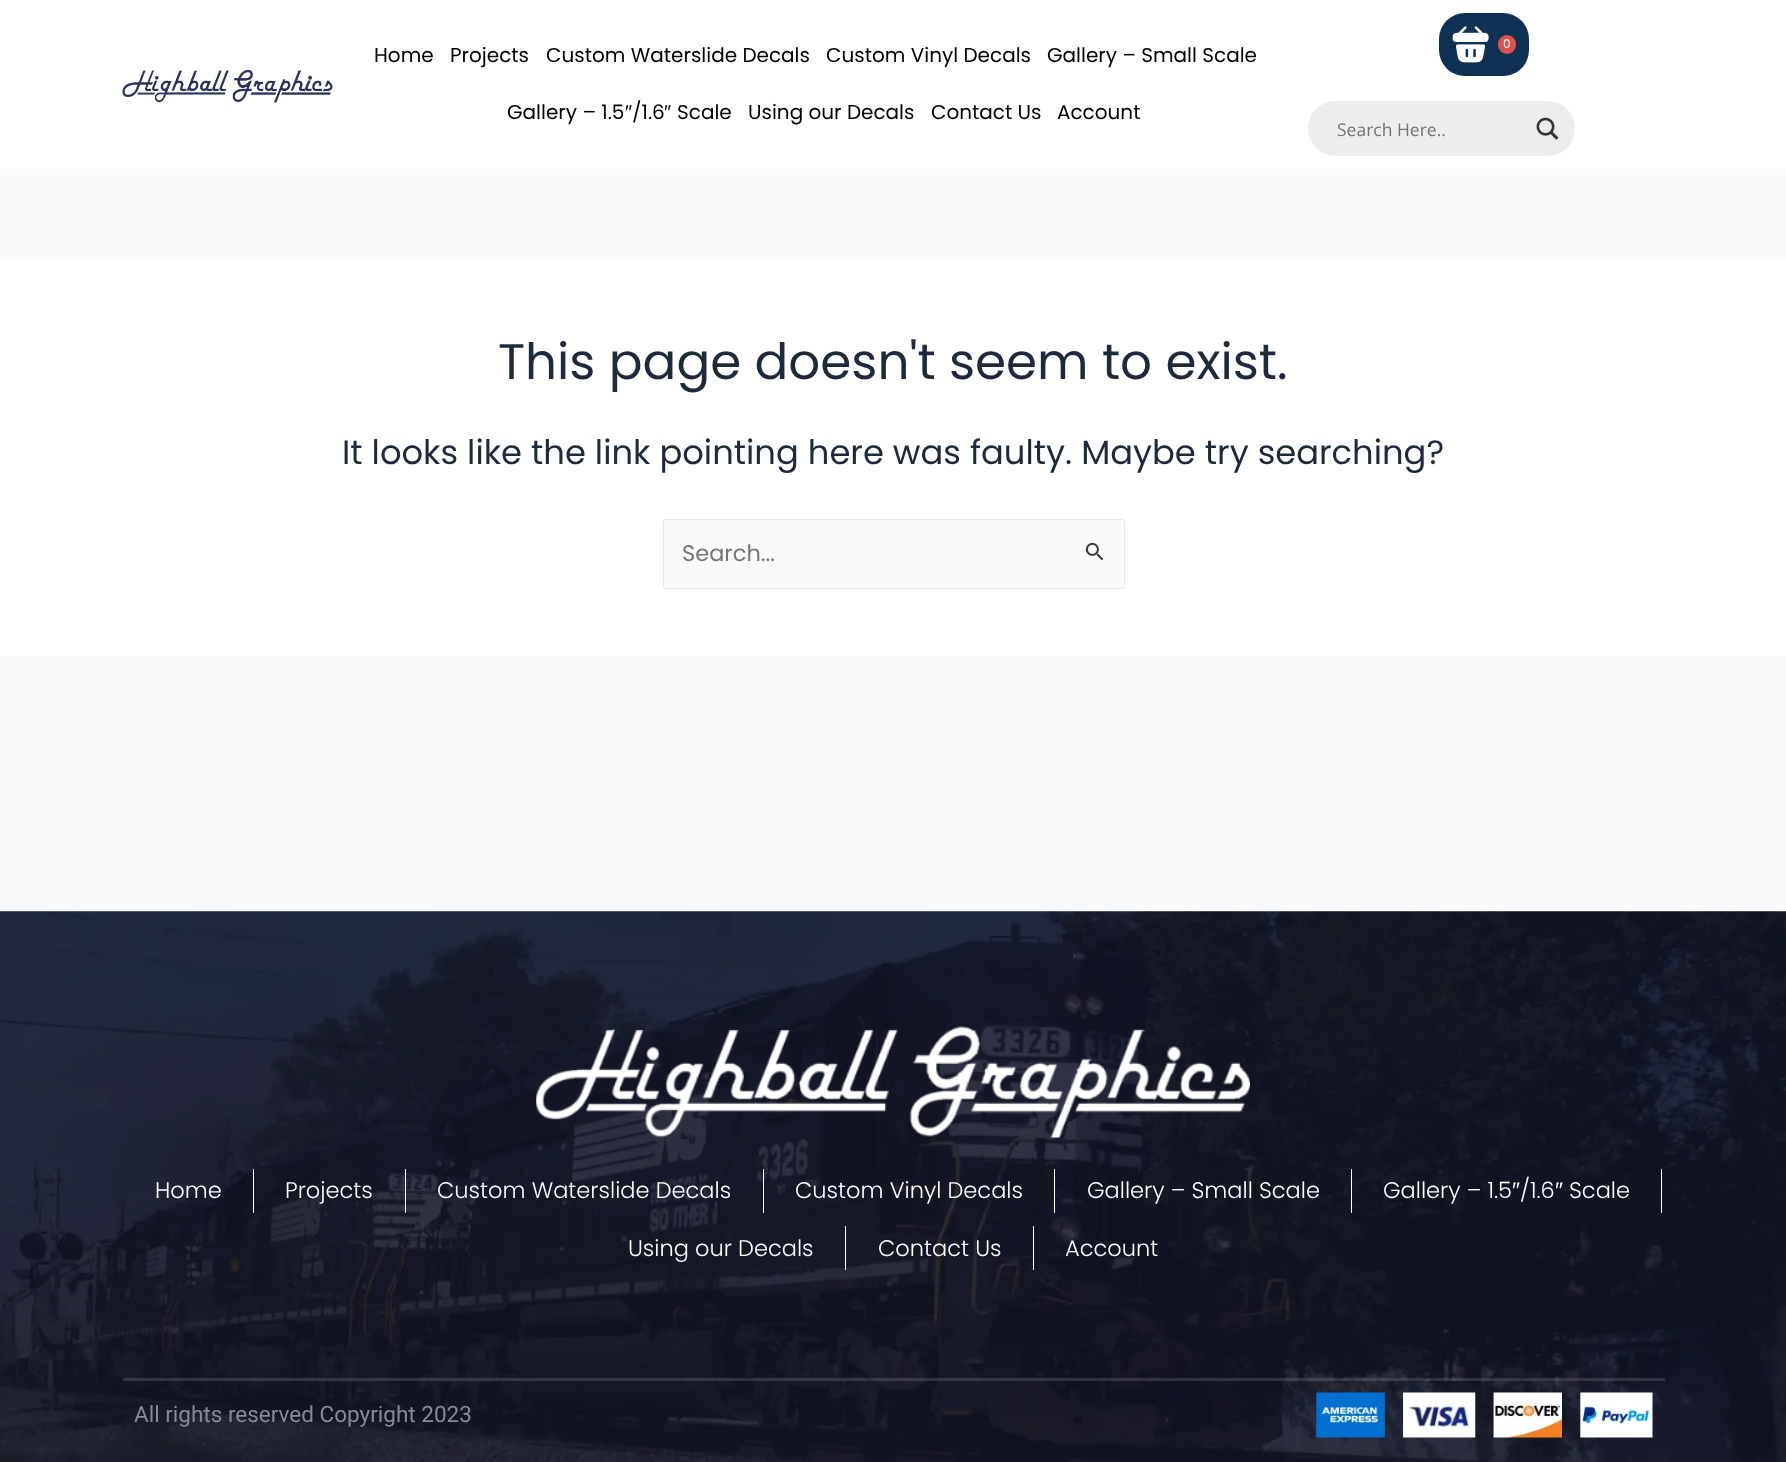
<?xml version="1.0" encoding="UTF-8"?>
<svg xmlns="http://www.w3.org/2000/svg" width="1786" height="1462">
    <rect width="100%" height="100%" fill="#F9FAFB"/>
    <rect x="0" y="0" width="1786" height="169" fill="#FFFFFF"/>
    <image x="122" y="69" width="211" height="34" href="img_01.png"/>
    <text x="374" y="62" font-family="Poppins" font-size="20" fill="#000000">Home</text>
    <text x="450" y="62" font-family="Poppins" font-size="20" fill="#000000">Projects</text>
    <text x="546" y="62" font-family="Poppins" font-size="20" fill="#000000">Custom Waterslide Decals</text>
    <text x="826" y="62" font-family="Poppins" font-size="20" fill="#000000">Custom Vinyl Decals</text>
    <text x="1047" y="62" font-family="Poppins" font-size="20" fill="#000000">Gallery – Small Scale</text>
    <text x="507" y="119" font-family="Poppins" font-size="20" fill="#000000">Gallery – 1.5</text>
    <text x="625" y="119" font-family="Liberation Sans" font-size="20" fill="#000000">″</text>
    <text x="632" y="119" font-family="Poppins" font-size="20" fill="#000000">/1.6</text>
    <text x="664" y="119" font-family="Liberation Sans" font-size="20" fill="#000000">″</text>
    <text x="677" y="119" font-family="Poppins" font-size="20" fill="#000000">Scale</text>
    <text x="748" y="119" font-family="Poppins" font-size="20" fill="#000000">Using our Decals</text>
    <text x="931" y="119" font-family="Poppins" font-size="20" fill="#000000">Contact Us</text>
    <text x="1057" y="119" font-family="Poppins" font-size="20" fill="#000000">Account</text>
    <rect x="1439" y="13" width="90" height="63" rx="26" fill="#0F3153"/>
    <image x="1452" y="26" width="37" height="37" href="img_02.png"/>
    <rect x="1498" y="35" width="18" height="19" rx="9" fill="#D9534F"/>
    <text x="1503" y="48" font-family="Poppins" font-size="12" fill="#FFFFFF">0</text>
    <rect x="1308" y="101" width="267" height="55" rx="27.5" fill="#EDEDED"/>
    <text x="1337" y="136" font-family="Open Sans" font-size="17.5" fill="#757575">Search Here..</text>
    <image x="1536" y="117" width="23" height="23" href="img_03.png"/>
    <rect x="0" y="259" width="1786" height="397" fill="#FFFFFF"/>
    <text x="498" y="379" font-family="Poppins" font-size="50" fill="#1E293B">This page doesn't seem to exist.</text>
    <text x="342" y="464" font-family="Poppins" font-size="33.75" fill="#1E293B">It looks like the link pointing here was faulty. Maybe try searching?</text>
    <rect x="663.5" y="519.5" width="461" height="69" rx="2" fill="#FAFAFA" stroke="#E2E8F0"/>
    <text x="682" y="561" font-family="Poppins" font-size="22.5" fill="#757575">Search...</text>
    <image x="1085" y="542" width="19" height="19" href="img_04.png"/>
    <image x="0" y="911" width="1786" height="551" href="img_05.png"/>
    <image x="536" y="1024" width="714" height="114" href="img_06.png"/>
    <text x="155" y="1198" font-family="Poppins" font-size="22.5" font-weight="300" fill="#FFFFFF">Home</text>
    <rect x="253" y="1169" width="1" height="44" fill="#FFFFFF"/>
    <text x="285" y="1198" font-family="Poppins" font-size="22.5" font-weight="300" fill="#FFFFFF">Projects</text>
    <rect x="405" y="1169" width="1" height="44" fill="#FFFFFF"/>
    <text x="437" y="1198" font-family="Poppins" font-size="22.5" font-weight="300" fill="#FFFFFF">Custom Waterslide Decals</text>
    <rect x="763" y="1169" width="1" height="44" fill="#FFFFFF"/>
    <text x="795" y="1198" font-family="Poppins" font-size="22.5" font-weight="300" fill="#FFFFFF">Custom Vinyl Decals</text>
    <rect x="1054" y="1169" width="1" height="44" fill="#FFFFFF"/>
    <text x="1087" y="1198" font-family="Poppins" font-size="22.5" font-weight="300" fill="#FFFFFF">Gallery – Small Scale</text>
    <rect x="1351" y="1169" width="1" height="44" fill="#FFFFFF"/>
    <text x="1383" y="1198" font-family="Poppins" font-size="22.5" font-weight="300" fill="#FFFFFF">Gallery – 1.5</text>
    <text x="1512" y="1198" font-family="Liberation Sans" font-size="22.5" fill="#FFFFFF">″</text>
    <text x="1520" y="1198" font-family="Poppins" font-size="22.5" font-weight="300" fill="#FFFFFF">/1.6</text>
    <text x="1555" y="1198" font-family="Liberation Sans" font-size="22.5" fill="#FFFFFF">″</text>
    <text x="1569" y="1198" font-family="Poppins" font-size="22.5" font-weight="300" fill="#FFFFFF">Scale</text>
    <rect x="1661" y="1169" width="1" height="44" fill="#FFFFFF"/>
    <text x="628" y="1256" font-family="Poppins" font-size="22.5" font-weight="300" fill="#FFFFFF">Using our Decals</text>
    <rect x="845" y="1226" width="1" height="44" fill="#FFFFFF"/>
    <text x="878" y="1256" font-family="Poppins" font-size="22.5" font-weight="300" fill="#FFFFFF">Contact Us</text>
    <rect x="1033" y="1226" width="1" height="44" fill="#FFFFFF"/>
    <text x="1065" y="1256" font-family="Poppins" font-size="22.5" font-weight="300" fill="#FFFFFF">Account</text>
    <rect x="123" y="1378" width="1542" height="3" fill="#FFFFFF" fill-opacity="0.13"/>
    <text x="134" y="1422" font-family="Roboto" font-size="22.5" fill="#888991">All rights reserved Copyright 2023</text>
    <image x="1316" y="1392" width="337" height="46" href="img_07.png"/>
</svg>
